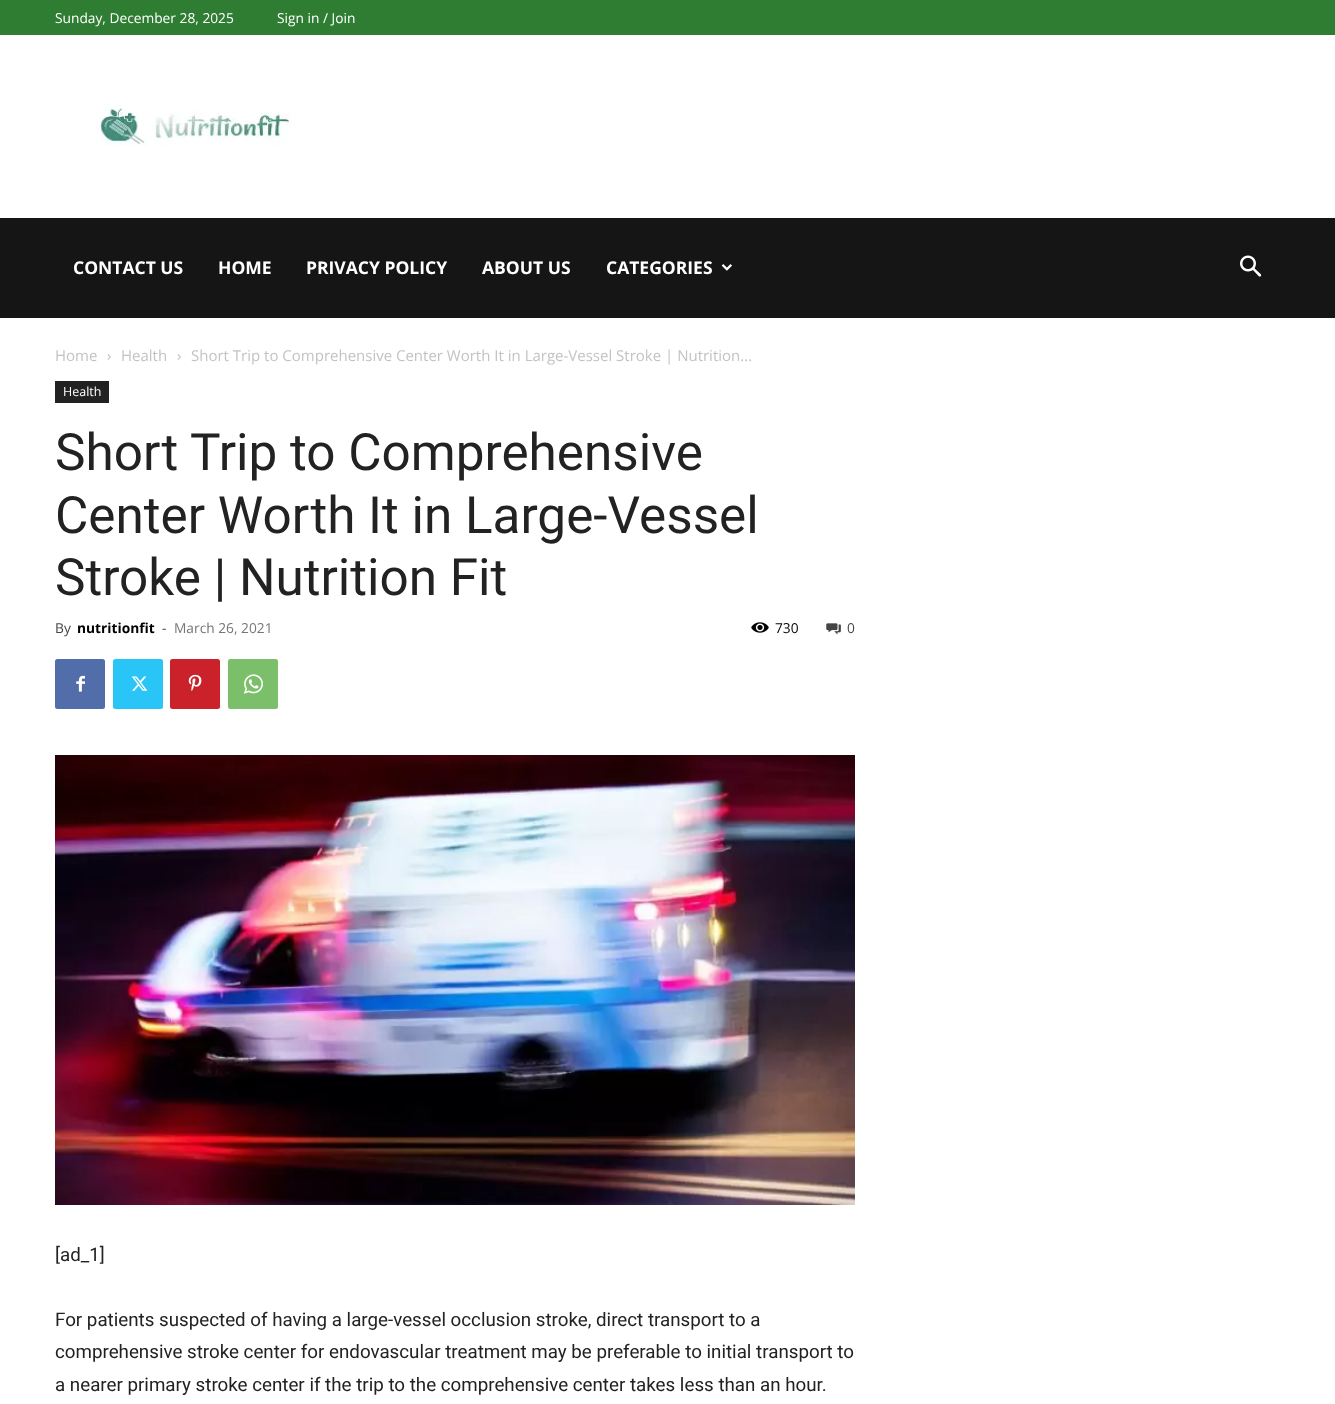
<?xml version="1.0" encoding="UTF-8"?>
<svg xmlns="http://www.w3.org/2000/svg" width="1335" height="1404">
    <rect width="100%" height="100%" fill="#FFFFFF"/>
    <rect x="0" y="0" width="1335" height="35" fill="#2E7D32"/>
    <text x="55" y="23" font-family="Open Sans" font-size="13.75" fill="#FFFFFF">Sunday, December 28, 2025</text>
    <text x="277" y="23" font-family="Open Sans" font-size="13.75" fill="#FFFFFF">Sign in / Join</text>
    <image x="96" y="104" width="195" height="42" href="img_01.png"/>
    <rect x="0" y="218" width="1335" height="100" fill="#151515"/>
    <text x="73" y="274" font-family="Open Sans" font-size="17.5" font-weight="700" fill="#FFFFFF">CONTACT US</text>
    <text x="218" y="274" font-family="Open Sans" font-size="17.5" font-weight="700" fill="#FFFFFF">HOME</text>
    <text x="306" y="274" font-family="Open Sans" font-size="17.5" font-weight="700" fill="#FFFFFF">PRIVACY POLICY</text>
    <text x="482" y="274" font-family="Open Sans" font-size="17.5" font-weight="700" fill="#FFFFFF">ABOUT US</text>
    <text x="606" y="274" font-family="Open Sans" font-size="17.5" font-weight="700" fill="#FFFFFF">CATEGORIES</text>
    <image x="721" y="264" width="11" height="7" href="img_02.png"/>
    <image x="1240" y="255" width="22" height="22" href="img_03.png"/>
    <text x="55" y="361" font-family="Open Sans" font-size="15" fill="#C3C3C3">Home</text>
    <image x="107" y="354" width="4" height="6" href="img_04.png"/>
    <text x="121" y="361" font-family="Open Sans" font-size="15" fill="#C3C3C3">Health</text>
    <image x="177" y="354" width="4" height="6" href="img_04.png"/>
    <text x="191" y="361" font-family="Open Sans" font-size="15" fill="#C3C3C3">Short Trip to Comprehensive Center Worth It in Large-Vessel Stroke | Nutrition...</text>
    <rect x="55" y="381" width="54" height="22" fill="#222222"/>
    <text x="63" y="396" font-family="Open Sans" font-size="12.5" fill="#FFFFFF">Health</text>
    <text font-family="Roboto" font-size="51.25" fill="#222222">
        <tspan x="55" y="470">Short Trip to Comprehensive</tspan>
        <tspan x="55" y="533">Center Worth It in Large-Vessel</tspan>
        <tspan x="55" y="595">Stroke | Nutrition Fit</tspan>
    </text>
    <text x="55" y="633" font-family="Open Sans" font-size="13.75" fill="#444444">By</text>
    <text x="77" y="633" font-family="Open Sans" font-size="13.75" font-weight="700" fill="#000000">nutritionfit</text>
    <text x="162" y="633" font-family="Open Sans" font-size="13.75" fill="#444444">-</text>
    <text x="174" y="633" font-family="Open Sans" font-size="13.75" fill="#767676">March 26, 2021</text>
    <image x="751" y="622" width="18" height="11" href="img_05.png"/>
    <text x="775" y="633" font-family="Open Sans" font-size="13.75" fill="#000000">730</text>
    <image x="826" y="623" width="15" height="12" href="img_06.png"/>
    <text x="847" y="633" font-family="Open Sans" font-size="13.75" fill="#444444">0</text>
    <rect x="55" y="659" width="50" height="50" rx="2.5" fill="#516EAB"/>
    <image x="76" y="675" width="9" height="17" href="img_07.png"/>
    <rect x="113" y="659" width="50" height="50" rx="2.5" fill="#29C5F6"/>
    <image x="131" y="676" width="17" height="15" href="img_08.png"/>
    <rect x="170" y="659" width="50" height="50" rx="2.5" fill="#CA212A"/>
    <image x="188" y="674" width="14" height="17" href="img_09.png"/>
    <rect x="228" y="659" width="50" height="50" rx="2.5" fill="#7BBF6A"/>
    <image x="243" y="674" width="20" height="20" href="img_10.png"/>
    <image x="55" y="755" width="800" height="450" href="img_11.png"/>
    <text x="55" y="1261" font-family="Roboto" font-size="18.75" fill="#222222">[ad_1]</text>
    <text font-family="Roboto" font-size="18.75" fill="#222222">
        <tspan x="55" y="1326">For patients suspected of having a large-vessel occlusion stroke, direct transport to a</tspan>
        <tspan x="55" y="1358">comprehensive stroke center for endovascular treatment may be preferable to initial transport to</tspan>
        <tspan x="55" y="1391">a nearer primary stroke center if the trip to the comprehensive center takes less than an hour.</tspan>
    </text>
</svg>
